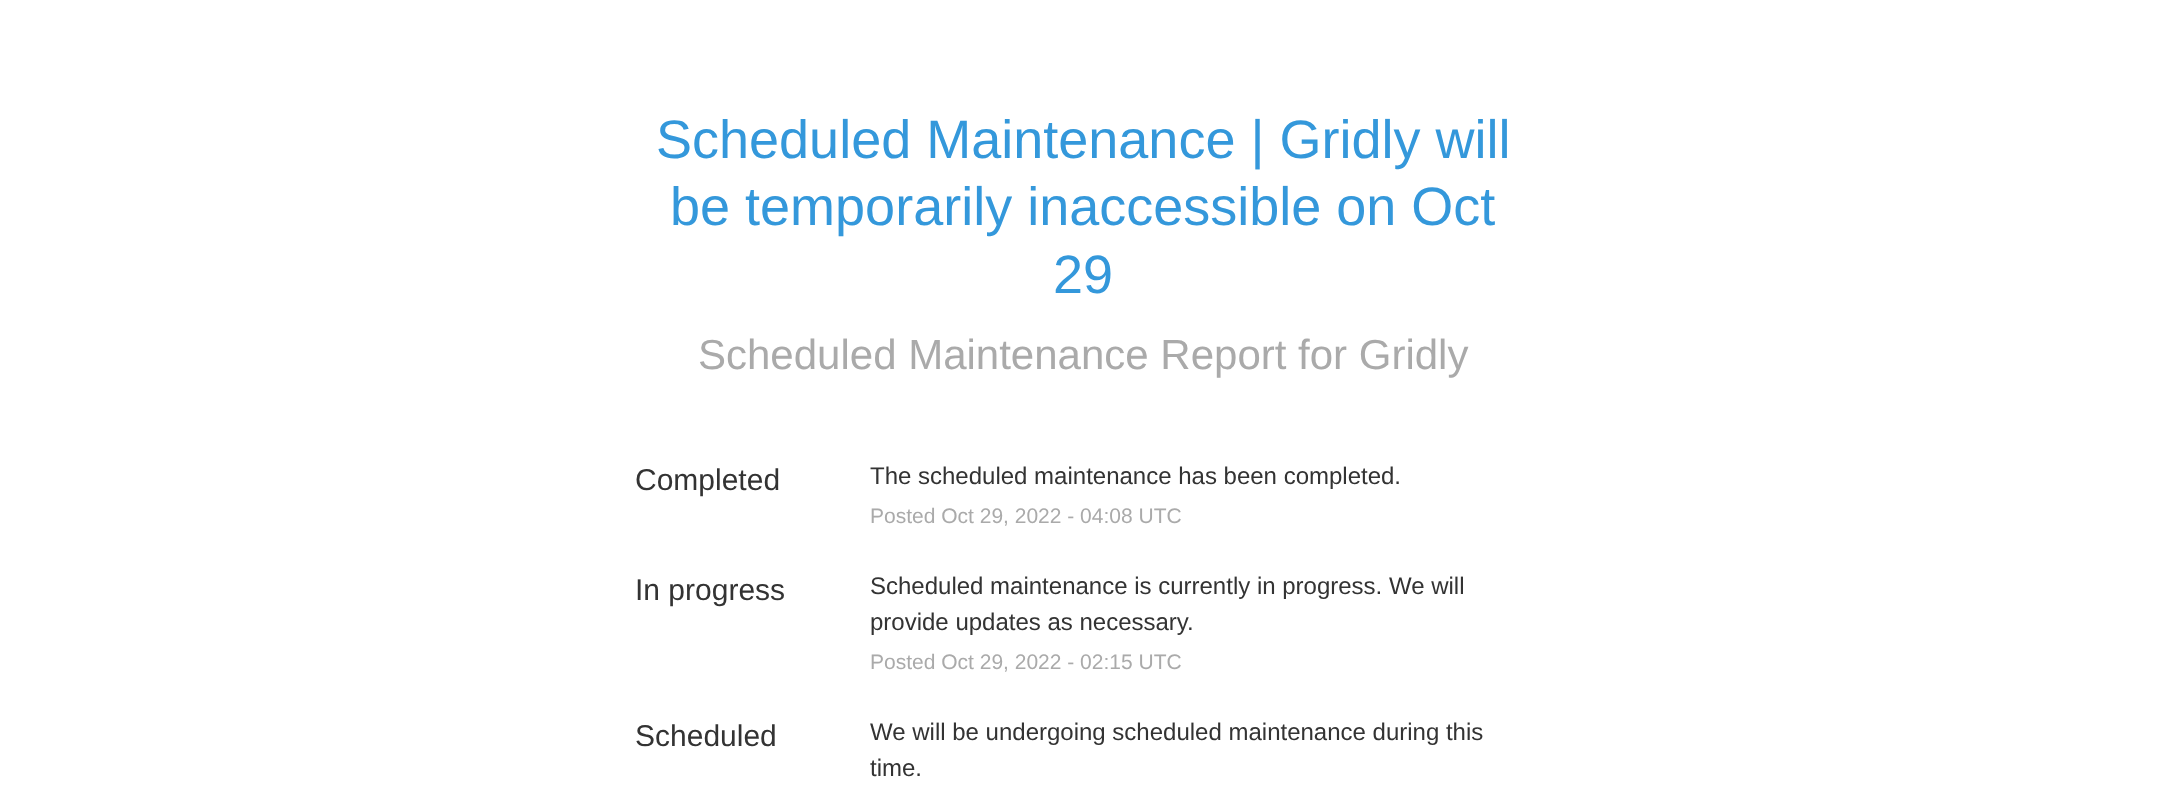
<?xml version="1.0" encoding="UTF-8"?>
<svg xmlns="http://www.w3.org/2000/svg" width="2166" height="797">
    <rect width="100%" height="100%" fill="#FFFFFF"/>
    <text x="656" y="158" font-family="Liberation Sans" font-size="54" fill="#3498DB">Scheduled Maintenance | Gridly will</text>
    <text x="670" y="225" font-family="Liberation Sans" font-size="54" fill="#3498DB">be temporarily inaccessible on Oct</text>
    <text x="1053" y="293" font-family="Liberation Sans" font-size="54" fill="#3498DB">29</text>
    <text x="698" y="369" font-family="Liberation Sans" font-size="42" fill="#AAAAAA">Scheduled Maintenance Report for Gridly</text>
    <text x="635" y="490" font-family="Liberation Sans" font-size="30" fill="#333333">Completed</text>
    <text x="870" y="484" font-family="Liberation Sans" font-size="24" fill="#333333">The scheduled maintenance has been completed.</text>
    <text x="870" y="523" font-family="Liberation Sans" font-size="21" fill="#AAAAAA">Posted Oct 29, 2022 - 04:08 UTC</text>
    <text x="635" y="600" font-family="Liberation Sans" font-size="30" fill="#333333">In progress</text>
    <text font-family="Liberation Sans" font-size="24" fill="#333333">
        <tspan x="870" y="594">Scheduled maintenance is currently in progress. We will</tspan>
        <tspan x="870" y="630">provide updates as necessary.</tspan>
    </text>
    <text x="870" y="669" font-family="Liberation Sans" font-size="21" fill="#AAAAAA">Posted Oct 29, 2022 - 02:15 UTC</text>
    <text x="635" y="746" font-family="Liberation Sans" font-size="30" fill="#333333">Scheduled</text>
    <text font-family="Liberation Sans" font-size="24" fill="#333333">
        <tspan x="870" y="740">We will be undergoing scheduled maintenance during this</tspan>
        <tspan x="870" y="776">time.</tspan>
    </text>
</svg>
